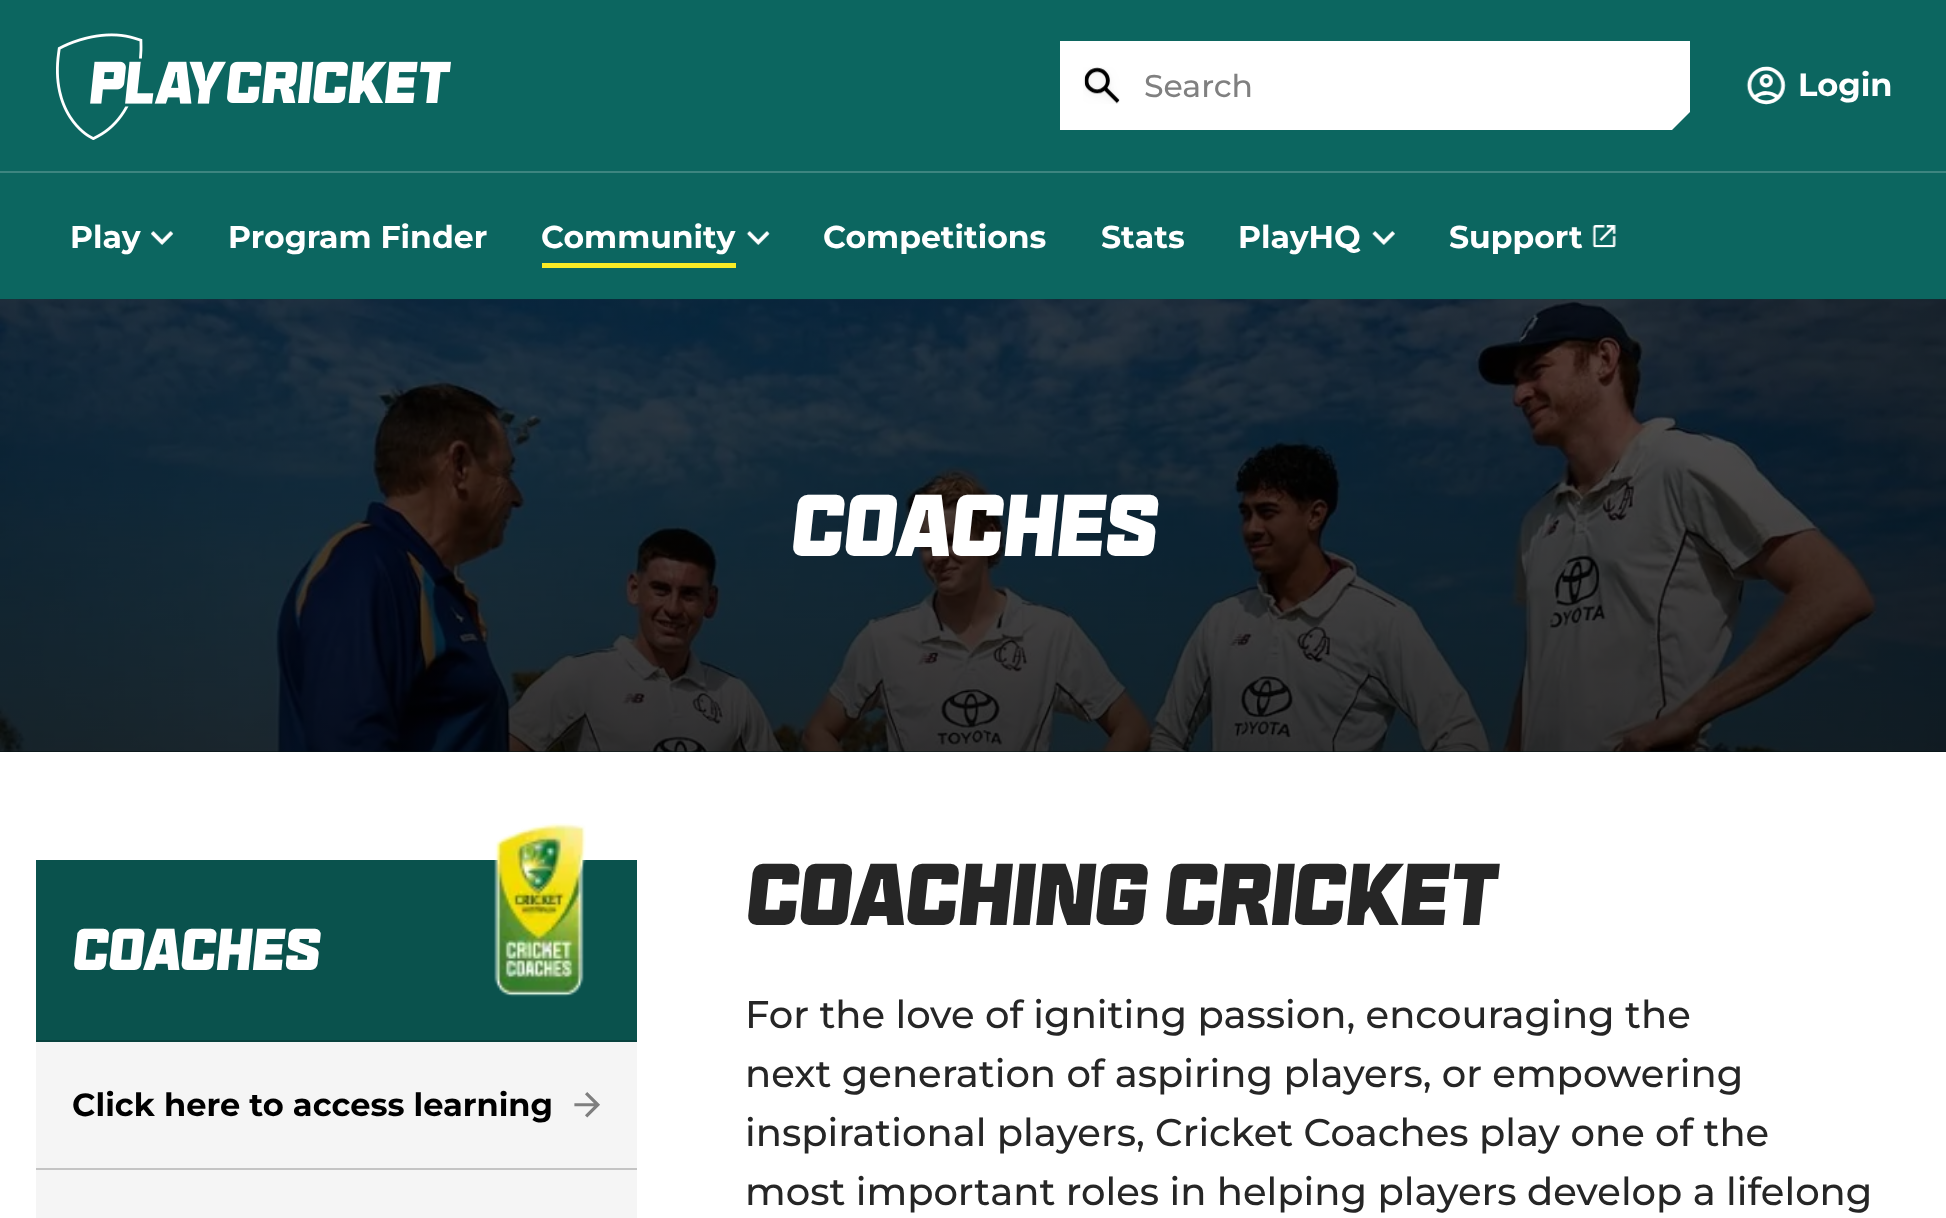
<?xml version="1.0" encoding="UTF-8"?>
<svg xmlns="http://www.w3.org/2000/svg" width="1946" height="1218">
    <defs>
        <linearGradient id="g1" gradientUnits="userSpaceOnUse" x1="973" y1="752" x2="973" y2="299"><stop offset="0" stop-color="#0A524D"/><stop offset="1" stop-color="#08A59B"/></linearGradient>
        <linearGradient id="g2" gradientUnits="userSpaceOnUse" x1="973" y1="299" x2="973" y2="752"><stop offset="0" stop-color="#000000" stop-opacity="0.64"/><stop offset="1" stop-color="#000000" stop-opacity="0.8"/></linearGradient>
    </defs>
    <rect width="100%" height="100%" fill="#FFFFFF"/>
    <rect x="0" y="0" width="1946" height="299" fill="#0C6660"/>
    <path d="M 1060 41 H 1690 V 112 L 1672 130 H 1060 Z" fill="#FFFFFF"/>
    <image x="1083" y="67" width="37" height="37" href="img_01.png"/>
    <text x="1144" y="97" font-family="Montserrat" font-size="31.5" font-weight="500" fill="#808080">Search</text>
    <image x="1746" y="66" width="40" height="39" href="img_02.png"/>
    <text x="1798" y="96" font-family="Montserrat" font-size="32.1" font-weight="700" fill="#FFFFFF">Login</text>
    <image x="56" y="33" width="395" height="107" href="img_03.png"/>
    <text x="70" y="248" font-family="Montserrat" font-size="31.5" font-weight="700" fill="#FFFFFF">Play</text>
    <image x="151" y="231" width="23" height="14" href="img_04.png"/>
    <text x="228" y="248" font-family="Montserrat" font-size="31.5" font-weight="700" fill="#FFFFFF">Program Finder</text>
    <text x="541" y="248" font-family="Montserrat" font-size="31.5" font-weight="700" fill="#FFFFFF">Community</text>
    <rect x="542" y="263" width="194" height="5" fill="#FAEC25"/>
    <image x="746" y="231" width="24" height="14" href="img_05.png"/>
    <text x="823" y="248" font-family="Montserrat" font-size="31.5" font-weight="700" fill="#FFFFFF">Competitions</text>
    <text x="1101" y="248" font-family="Montserrat" font-size="31.5" font-weight="700" fill="#FFFFFF">Stats</text>
    <text x="1238" y="248" font-family="Montserrat" font-size="31.5" font-weight="700" fill="#FFFFFF">PlayHQ</text>
    <image x="1372" y="231" width="23" height="14" href="img_06.png"/>
    <text x="1449" y="248" font-family="Montserrat" font-size="31.5" font-weight="700" fill="#FFFFFF">Support</text>
    <image x="1592" y="225" width="24" height="23" href="img_07.png"/>
    <rect x="0" y="171" width="1946" height="2" fill="#3D8580"/>
    <rect x="0" y="299" width="1946" height="453" fill="url(#g1)"/>
    <image x="0" y="299" width="1946" height="453" href="img_08.png"/>
    <rect x="0" y="299" width="1946" height="453" fill="url(#g2)"/>
    <text x="790" y="556" font-family="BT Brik" font-size="90" fill="#FFFFFF">Coaches</text>
    <rect x="36" y="860" width="601" height="180" fill="#0A524D"/>
    <rect x="36" y="1040" width="601" height="2" fill="#08423E"/>
    <text x="72" y="970" font-family="BT Brik" font-size="60.75" fill="#FFFFFF">Coaches</text>
    <image x="494" y="823" width="92" height="174" href="img_09.png"/>
    <path d="M 36 1042 V 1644 H 601 L 637 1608 V 1042 Z" fill="#F5F5F5"/>
    <rect x="36" y="1168" width="601" height="2" fill="#C4C4C4"/>
    <text x="72" y="1116" font-family="Montserrat" font-size="32.1" font-weight="700" fill="#000000">Click here to access learning</text>
    <image x="574" y="1092" width="26" height="26" href="img_10.png"/>
    <text x="745" y="925" font-family="BT Brik" font-size="90" fill="#262626">Coaching Cricket</text>
    <text font-family="Montserrat" font-size="38.5" font-weight="500" fill="#262626">
        <tspan x="745" y="1028">For the love of igniting passion, encouraging the</tspan>
        <tspan x="745" y="1087">next generation of aspiring players, or empowering</tspan>
        <tspan x="745" y="1146">inspirational players, Cricket Coaches play one of the</tspan>
        <tspan x="745" y="1205">most important roles in helping players develop a lifelong</tspan>
    </text>
</svg>
